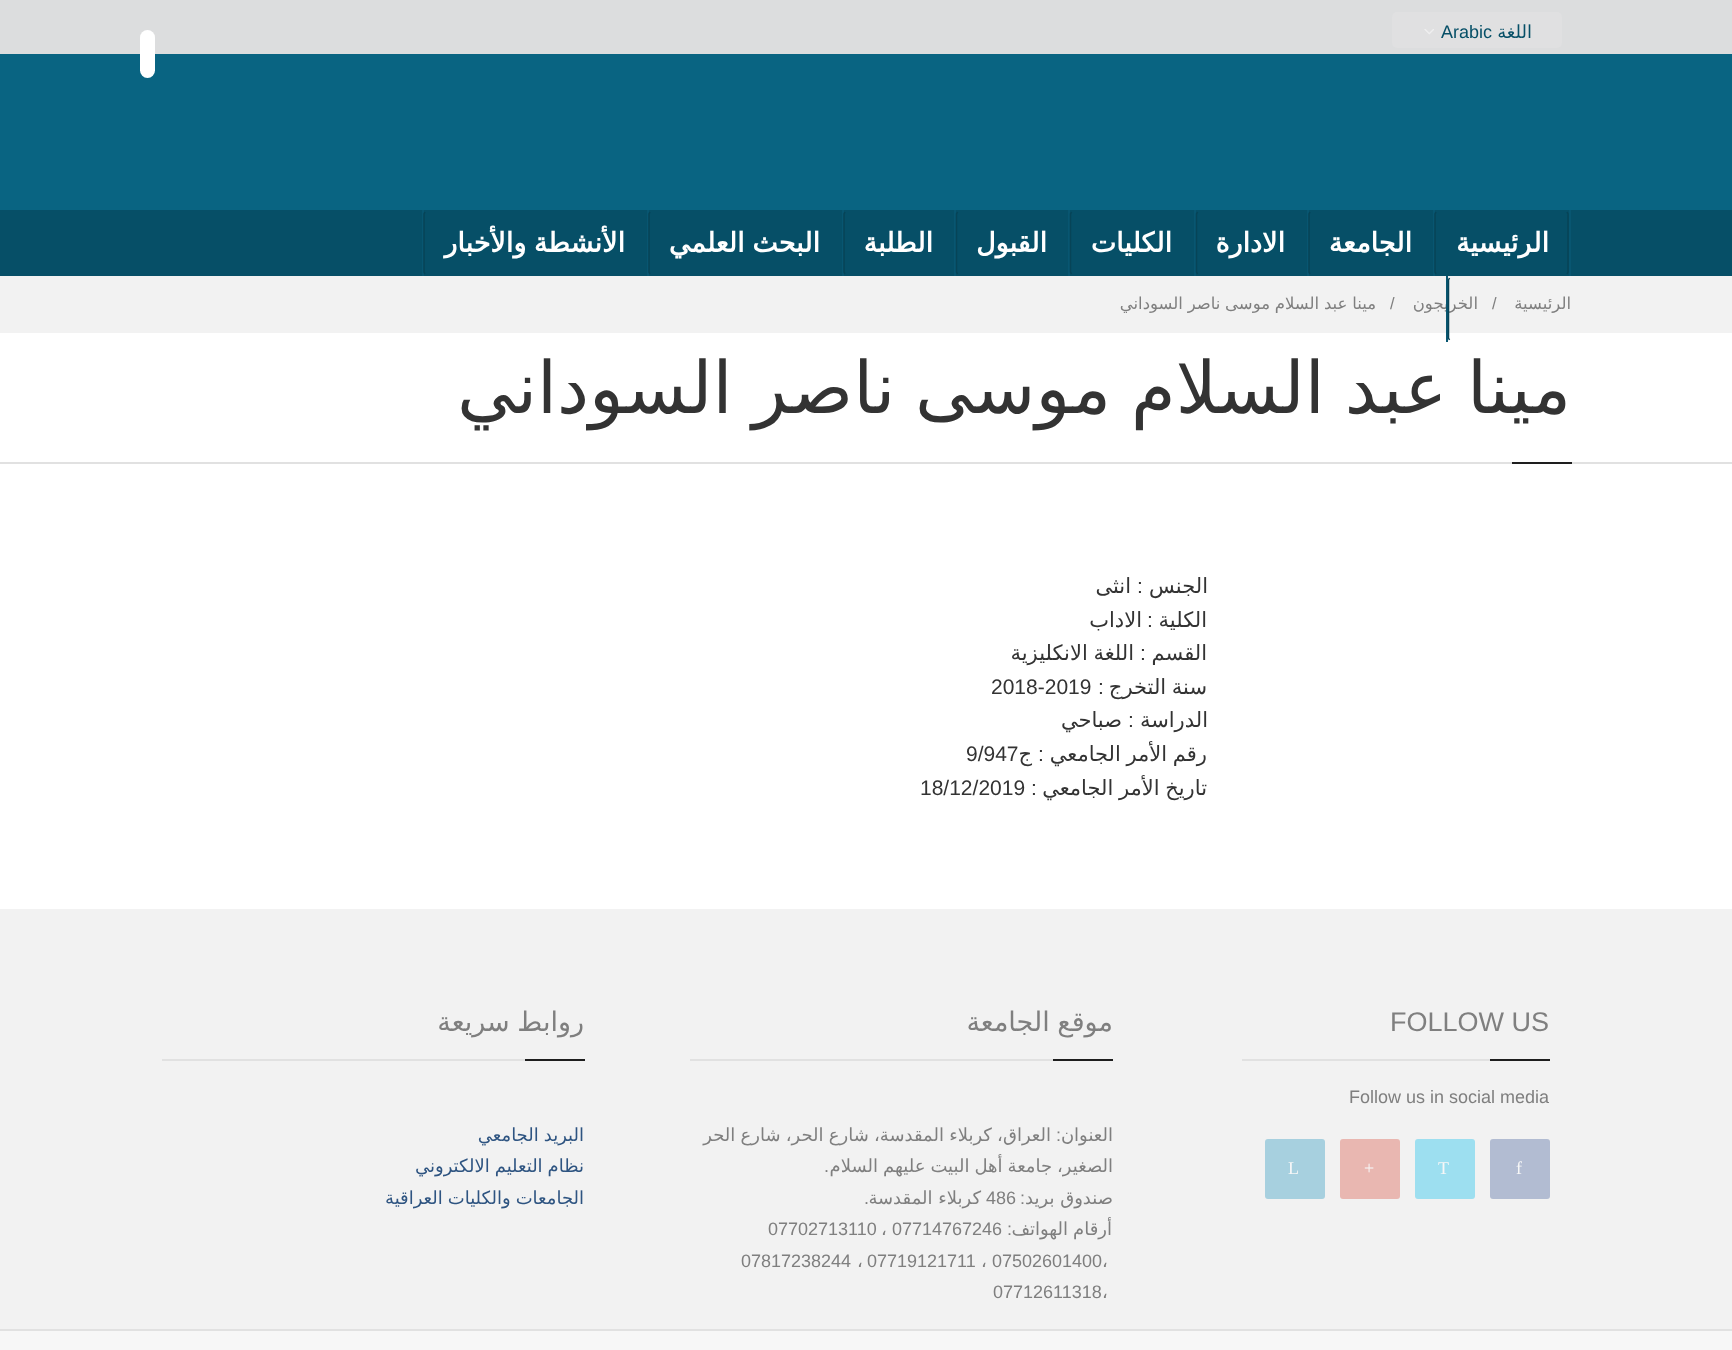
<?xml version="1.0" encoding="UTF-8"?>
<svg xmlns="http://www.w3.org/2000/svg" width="1732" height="1350">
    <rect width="100%" height="100%" fill="#FFFFFF"/>
    <rect x="0" y="0" width="1732" height="54" fill="#DCDDDE"/>
    <rect x="1392" y="12" width="170" height="36" rx="5" fill="#E0E0E1"/>
    <text x="1532" y="38" font-family="DejaVu Sans" font-size="18" direction="rtl" fill="#064F67">اللغة</text>
    <text x="1441" y="38" font-family="Liberation Sans" font-size="18" fill="#064F67">Arabic</text>
    <image x="1424" y="29" width="10" height="6" href="img_01.png"/>
    <rect x="0" y="54" width="1732" height="156" fill="#096482"/>
    <rect x="140" y="30" width="15" height="48" rx="7.5" fill="#FFFFFF"/>
    <rect x="0" y="210" width="1732" height="66" fill="#064F67"/>
    <rect x="1569" y="210" width="2" height="66" fill="#085671"/>
    <rect x="1433" y="210" width="2" height="66" fill="#085671"/>
    <path d="M 1567 212 L 1568 214 V 272 L 1567 274" fill="none" stroke="#074457" stroke-width="1.5"/>
    <path d="M 1436 274 L 1435 272 V 214 L 1436 212" fill="none" stroke="#074457" stroke-width="1.5"/>
    <text x="1549" y="252" font-family="DejaVu Sans" font-size="27" font-weight="700" direction="rtl" fill="#FFFFFF">الرئيسية</text>
    <rect x="1307" y="210" width="2" height="66" fill="#085671"/>
    <path d="M 1310 274 L 1309 272 V 214 L 1310 212" fill="none" stroke="#074457" stroke-width="1.5"/>
    <text x="1412" y="252" font-family="DejaVu Sans" font-size="27" font-weight="700" direction="rtl" fill="#FFFFFF">الجامعة</text>
    <rect x="1194" y="210" width="2" height="66" fill="#085671"/>
    <path d="M 1197.5 274 L 1196.5 272 V 214 L 1197.5 212" fill="none" stroke="#074457" stroke-width="1.5"/>
    <text x="1285" y="252" font-family="DejaVu Sans" font-size="27" font-weight="700" direction="rtl" fill="#FFFFFF">الادارة</text>
    <rect x="1068" y="210" width="2" height="66" fill="#085671"/>
    <path d="M 1071.5 274 L 1070.5 272 V 214 L 1071.5 212" fill="none" stroke="#074457" stroke-width="1.5"/>
    <text x="1172" y="252" font-family="DejaVu Sans" font-size="27" font-weight="700" direction="rtl" fill="#FFFFFF">الكليات</text>
    <rect x="954" y="210" width="2" height="66" fill="#085671"/>
    <path d="M 957.5 274 L 956.5 272 V 214 L 957.5 212" fill="none" stroke="#074457" stroke-width="1.5"/>
    <text x="1047" y="252" font-family="DejaVu Sans" font-size="27" font-weight="700" direction="rtl" fill="#FFFFFF">القبول</text>
    <rect x="842" y="210" width="2" height="66" fill="#085671"/>
    <path d="M 845 274 L 844 272 V 214 L 845 212" fill="none" stroke="#074457" stroke-width="1.5"/>
    <text x="933" y="252" font-family="DejaVu Sans" font-size="27" font-weight="700" direction="rtl" fill="#FFFFFF">الطلبة</text>
    <rect x="647" y="210" width="2" height="66" fill="#085671"/>
    <path d="M 650 274 L 649 272 V 214 L 650 212" fill="none" stroke="#074457" stroke-width="1.5"/>
    <text x="820" y="252" word-spacing="-1" font-family="DejaVu Sans" font-size="27" font-weight="700" direction="rtl" fill="#FFFFFF">البحث العلمي</text>
    <rect x="422" y="210" width="2" height="66" fill="#085671"/>
    <path d="M 425 274 L 424 272 V 214 L 425 212" fill="none" stroke="#074457" stroke-width="1.5"/>
    <text x="625" y="252" word-spacing="-1" font-family="DejaVu Sans" font-size="27" font-weight="700" direction="rtl" fill="#FFFFFF">الأنشطة والأخبار</text>
    <rect x="0" y="276" width="1732" height="57" fill="#F2F2F2"/>
    <text x="1478" y="309" font-family="DejaVu Sans" font-size="16.5" direction="rtl" fill="#7F7F7F">الخريجون</text>
    <rect x="1446" y="276" width="2" height="66" fill="#085671"/>
    <path d="M 1449.5 340 L 1448.5 338 V 280 L 1449.5 278" fill="none" stroke="#074457" stroke-width="1.5"/>
    <text x="1571" y="309" font-family="DejaVu Sans" font-size="16.5" direction="rtl" fill="#7F7F7F">الرئيسية</text>
    <text x="1492" y="309" font-family="Liberation Sans" font-size="16.5" fill="#7F7F7F">/</text>
    <text x="1390" y="309" font-family="Liberation Sans" font-size="16.5" fill="#7F7F7F">/</text>
    <text x="1376" y="309" word-spacing="-0.5" font-family="DejaVu Sans" font-size="16.5" direction="rtl" fill="#7F7F7F">مينا عبد السلام موسى ناصر السوداني</text>
    <rect x="0" y="462" width="1732" height="2" fill="#E1E1E1"/>
    <text x="1571" y="413" word-spacing="-3" font-family="DejaVu Sans" font-size="72" direction="rtl" fill="#333333">مينا عبد السلام موسى ناصر السوداني</text>
    <rect x="1512" y="462" width="60" height="2" fill="#1E1E1E"/>
    <text x="1208" y="593" font-family="DejaVu Sans" font-size="21" direction="rtl" fill="#333333">الجنس</text>
    <text x="1137" y="593" font-family="Liberation Sans" font-size="21" fill="#333333">:</text>
    <text x="1131" y="593" font-family="DejaVu Sans" font-size="21" direction="rtl" fill="#333333">انثى</text>
    <text x="1207" y="627" font-family="DejaVu Sans" font-size="21" direction="rtl" fill="#333333">الكلية</text>
    <text x="1147" y="627" font-family="Liberation Sans" font-size="21" fill="#333333">:</text>
    <text x="1142" y="627" font-family="DejaVu Sans" font-size="21" direction="rtl" fill="#333333">الاداب</text>
    <text x="1207" y="660" font-family="DejaVu Sans" font-size="21" direction="rtl" fill="#333333">القسم</text>
    <text x="1140" y="660" font-family="Liberation Sans" font-size="21" fill="#333333">:</text>
    <text x="1134" y="660" word-spacing="-1" font-family="DejaVu Sans" font-size="21" direction="rtl" fill="#333333">اللغة الانكليزية</text>
    <text x="1207" y="694" word-spacing="-1" font-family="DejaVu Sans" font-size="21" direction="rtl" fill="#333333">سنة التخرج</text>
    <text x="1098" y="694" font-family="Liberation Sans" font-size="21" fill="#333333">:</text>
    <text x="991" y="694" font-family="Liberation Sans" font-size="21" fill="#333333">2018-2019</text>
    <text x="1208" y="727" font-family="DejaVu Sans" font-size="21" direction="rtl" fill="#333333">الدراسة</text>
    <text x="1128" y="727" font-family="Liberation Sans" font-size="21" fill="#333333">:</text>
    <text x="1122" y="727" font-family="DejaVu Sans" font-size="21" direction="rtl" fill="#333333">صباحي</text>
    <text x="1207" y="761" word-spacing="-1" font-family="DejaVu Sans" font-size="21" direction="rtl" fill="#333333">رقم الأمر الجامعي</text>
    <text x="1038" y="761" font-family="Liberation Sans" font-size="21" fill="#333333">:</text>
    <text x="1032" y="761" font-family="DejaVu Sans" font-size="21" direction="rtl" fill="#333333">ج</text>
    <text x="966" y="761" font-family="Liberation Sans" font-size="21" fill="#333333">9/947</text>
    <text x="1207" y="795" word-spacing="-1" font-family="DejaVu Sans" font-size="21" direction="rtl" fill="#333333">تاريخ الأمر الجامعي</text>
    <text x="1031" y="795" font-family="Liberation Sans" font-size="21" fill="#333333">:</text>
    <text x="920" y="795" font-family="Liberation Sans" font-size="21" fill="#333333">18/12/2019</text>
    <rect x="0" y="909" width="1732" height="420" fill="#F2F2F2"/>
    <rect x="1242" y="1059" width="248" height="2" fill="#E1E1E1"/>
    <text x="1390" y="1031" font-family="Liberation Sans" font-size="27" fill="#7F7F7F">FOLLOW US</text>
    <rect x="1490" y="1059" width="60" height="2" fill="#1E1E1E"/>
    <text x="1349" y="1103" font-family="Liberation Sans" font-size="18" fill="#7F7F7F">Follow us in social media</text>
    <rect x="1490" y="1139" width="60" height="60" rx="3" fill="#B2BCD2"/>
    <text x="1516" y="1174" font-family="Liberation Serif" font-size="18" fill="#F7F7F7">f</text>
    <rect x="1415" y="1139" width="60" height="60" rx="3" fill="#9DDFF0"/>
    <text x="1438" y="1174" font-family="Liberation Serif" font-size="18" fill="#F7F7F7">T</text>
    <rect x="1340" y="1139" width="60" height="60" rx="3" fill="#E9B7B1"/>
    <text x="1364" y="1174" font-family="Liberation Serif" font-size="18" fill="#F7F7F7">+</text>
    <rect x="1265" y="1139" width="60" height="60" rx="3" fill="#A7D0DF"/>
    <text x="1288" y="1174" font-family="Liberation Serif" font-size="18" fill="#F7F7F7">L</text>
    <rect x="690" y="1059" width="363" height="2" fill="#E1E1E1"/>
    <text x="1113" y="1031" word-spacing="-1" font-family="DejaVu Sans" font-size="27" direction="rtl" fill="#7F7F7F">موقع الجامعة</text>
    <rect x="1053" y="1059" width="60" height="2" fill="#1E1E1E"/>
    <text x="1113" y="1141" font-family="DejaVu Sans" font-size="18" direction="rtl" fill="#7F7F7F">العنوان</text>
    <text x="1061" y="1141" font-family="Liberation Sans" font-size="18" direction="rtl" fill="#7F7F7F">:</text>
    <text x="1051" y="1141" word-spacing="-0.5" font-family="DejaVu Sans" font-size="18" direction="rtl" fill="#7F7F7F">العراق، كربلاء المقدسة، شارع الحر، شارع الحر</text>
    <text x="1113" y="1172" word-spacing="-0.75" font-family="DejaVu Sans" font-size="18" direction="rtl" fill="#7F7F7F">الصغير، جامعة أهل البيت عليهم السلام</text>
    <text x="829" y="1172" font-family="Liberation Sans" font-size="18" direction="rtl" fill="#7F7F7F">.</text>
    <text x="1113" y="1204" font-family="DejaVu Sans" font-size="18" direction="rtl" fill="#7F7F7F">صندوق بريد</text>
    <text x="1025" y="1204" font-family="Liberation Sans" font-size="18" direction="rtl" fill="#7F7F7F">:</text>
    <text x="986" y="1204" font-family="Liberation Sans" font-size="18" fill="#7F7F7F">486</text>
    <text x="981" y="1204" font-family="DejaVu Sans" font-size="18" direction="rtl" fill="#7F7F7F">كربلاء المقدسة</text>
    <text x="869" y="1204" font-family="Liberation Sans" font-size="18" direction="rtl" fill="#7F7F7F">.</text>
    <text x="1112" y="1235" word-spacing="-0.75" font-family="DejaVu Sans" font-size="18" direction="rtl" fill="#7F7F7F">أرقام الهواتف</text>
    <text x="1012" y="1235" font-family="Liberation Sans" font-size="18" direction="rtl" fill="#7F7F7F">:</text>
    <text x="892" y="1235" font-family="Liberation Sans" font-size="18" fill="#7F7F7F">07714767246</text>
    <text x="881" y="1235" font-family="DejaVu Sans" font-size="18" fill="#7F7F7F">،</text>
    <text x="768" y="1235" font-family="Liberation Sans" font-size="18" fill="#7F7F7F">07702713110</text>
    <text x="1102" y="1267" font-family="DejaVu Sans" font-size="18" fill="#7F7F7F">،</text>
    <text x="992" y="1267" font-family="Liberation Sans" font-size="18" fill="#7F7F7F">07502601400</text>
    <text x="981" y="1267" font-family="DejaVu Sans" font-size="18" fill="#7F7F7F">،</text>
    <text x="867" y="1267" font-family="Liberation Sans" font-size="18" fill="#7F7F7F">07719121711</text>
    <text x="857" y="1267" font-family="DejaVu Sans" font-size="18" fill="#7F7F7F">،</text>
    <text x="741" y="1267" font-family="Liberation Sans" font-size="18" fill="#7F7F7F">07817238244</text>
    <text x="1102" y="1298" font-family="DejaVu Sans" font-size="18" fill="#7F7F7F">،</text>
    <text x="993" y="1298" font-family="Liberation Sans" font-size="18" fill="#7F7F7F">07712611318</text>
    <rect x="162" y="1059" width="363" height="2" fill="#E1E1E1"/>
    <text x="584" y="1031" word-spacing="-1" font-family="DejaVu Sans" font-size="27" direction="rtl" fill="#7F7F7F">روابط سريعة</text>
    <rect x="525" y="1059" width="60" height="2" fill="#1E1E1E"/>
    <text font-family="DejaVu Sans" font-size="18" direction="rtl" fill="#2E5481">
        <tspan x="584" y="1141" word-spacing="-0.75">البريد الجامعي</tspan>
        <tspan x="584" y="1172" word-spacing="-0.75">نظام التعليم الالكتروني</tspan>
        <tspan x="584" y="1204" word-spacing="-0.75">الجامعات والكليات العراقية</tspan>
    </text>
    <rect x="0" y="1331" width="1732" height="19" fill="#F7F7F7"/>
    <rect x="0" y="1329" width="1732" height="2" fill="#E1E1E1"/>
</svg>
